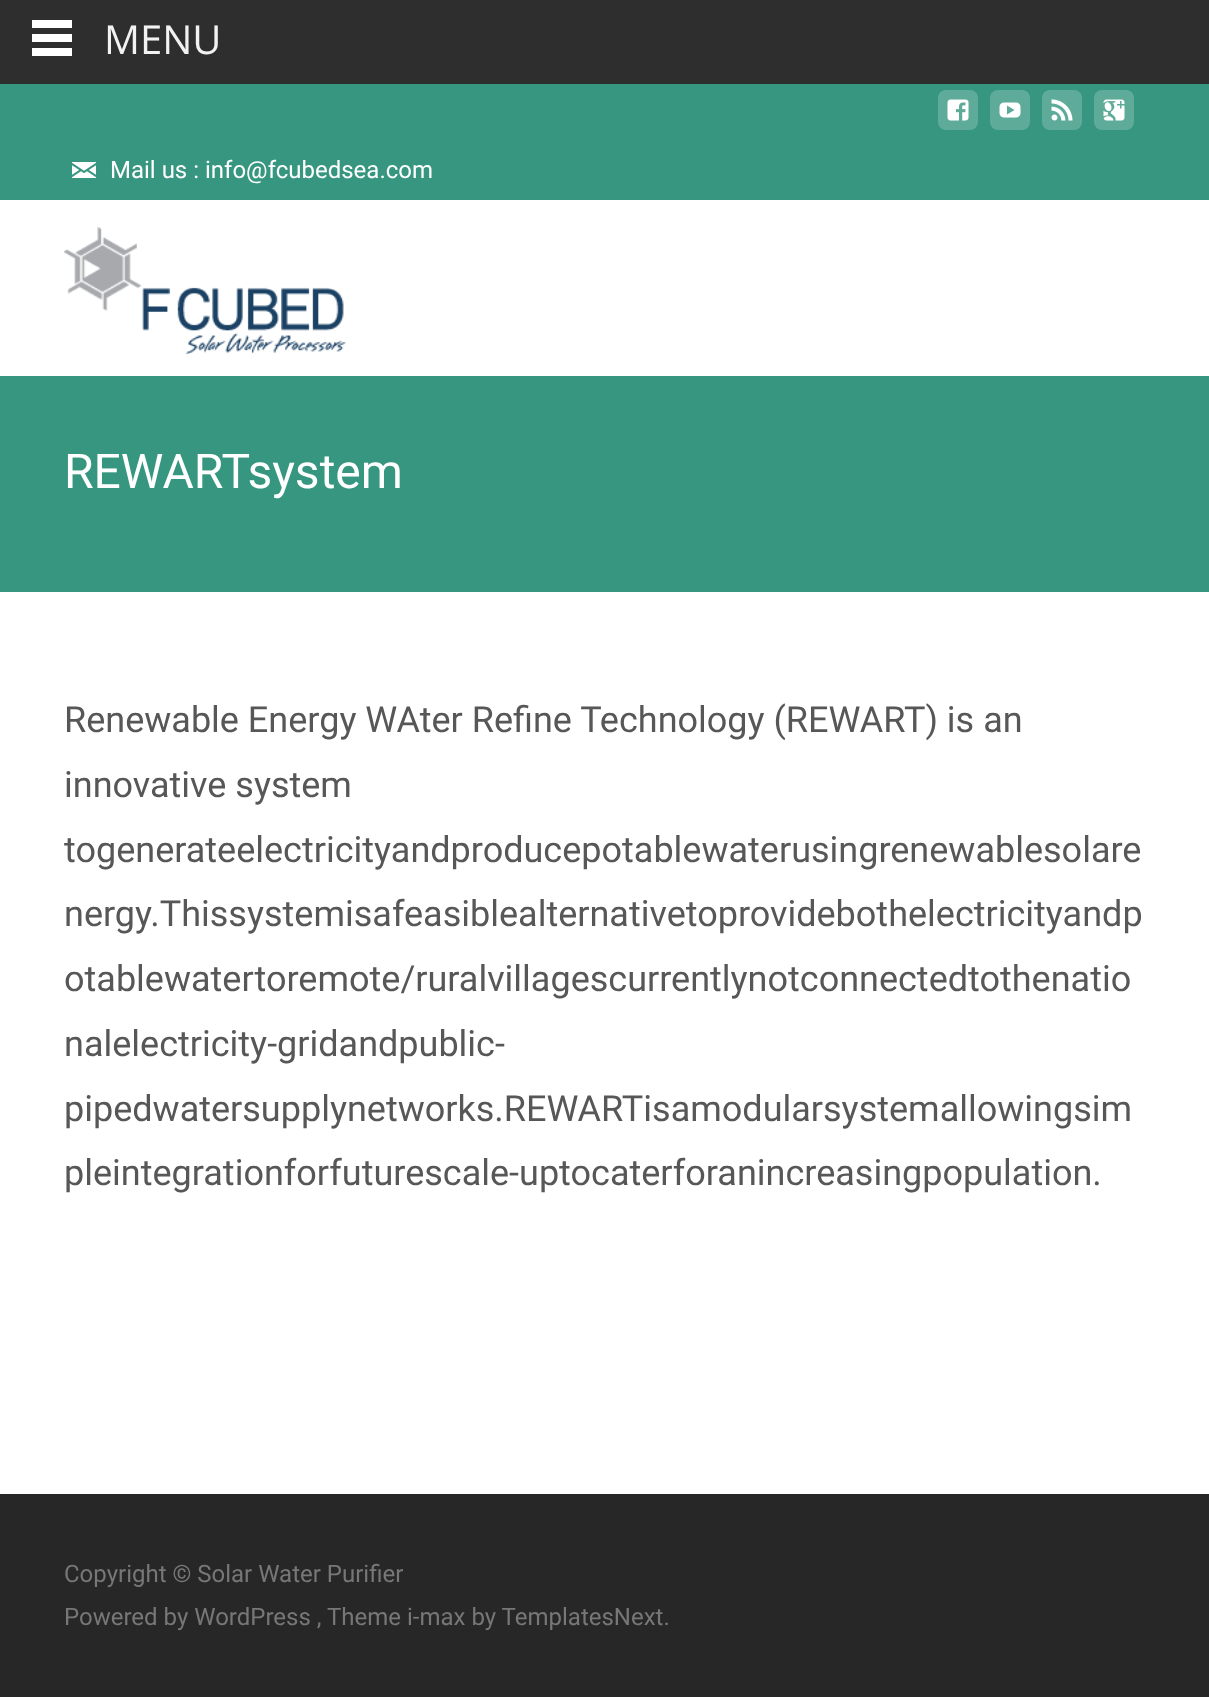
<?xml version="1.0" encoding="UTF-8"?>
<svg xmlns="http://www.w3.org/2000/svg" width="1209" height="1697">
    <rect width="100%" height="100%" fill="#FFFFFF"/>
    <rect x="0" y="0" width="1209" height="84" fill="#2E2E2E"/>
    <rect x="32" y="20" width="40" height="8" fill="#FFFFFF"/>
    <rect x="32" y="34" width="40" height="8" fill="#FFFFFF"/>
    <rect x="32" y="48" width="40" height="8" fill="#FFFFFF"/>
    <text x="104" y="54" font-family="Open Sans" font-size="40" fill="#F2F2F2">MENU</text>
    <rect x="0" y="84" width="1209" height="116" fill="#36967F"/>
    <rect x="938" y="90" width="40" height="40" rx="8" fill="#5EAB99"/>
    <image x="947" y="99" width="22" height="22" href="img_01.png"/>
    <rect x="990" y="90" width="40" height="40" rx="8" fill="#5EAB99"/>
    <image x="999" y="102" width="22" height="16" href="img_02.png"/>
    <rect x="1042" y="90" width="40" height="40" rx="8" fill="#5EAB99"/>
    <image x="1051" y="99" width="22" height="22" href="img_03.png"/>
    <rect x="1094" y="90" width="40" height="40" rx="8" fill="#5EAB99"/>
    <image x="1103" y="99" width="22" height="22" href="img_04.png"/>
    <image x="72" y="162" width="24" height="16" href="img_05.png"/>
    <text x="110" y="178" font-family="Roboto" font-size="24" fill="#FFFFFF">Mail us : info@fcubedsea.com</text>
    <image x="64" y="226" width="282" height="128" href="img_06.png"/>
    <rect x="0" y="376" width="1209" height="216" fill="#36967F"/>
    <text x="64" y="488" font-family="Roboto" font-size="48" fill="#FFFFFF">REWARTsystem</text>
    <text font-family="Roboto" font-size="36" fill="#575757">
        <tspan x="64" y="732">Renewable Energy WAter Refine Technology (REWART) is an</tspan>
        <tspan x="64" y="797">innovative system</tspan>
        <tspan x="64" y="862">togenerateelectricityandproducepotablewaterusingrenewablesolare</tspan>
        <tspan x="64" y="926">nergy.Thissystemisafeasiblealternativetoprovidebothelectricityandp</tspan>
        <tspan x="64" y="991">otablewatertoremote/ruralvillagescurrentlynotconnectedtothenatio</tspan>
        <tspan x="64" y="1056">nalelectricity-gridandpublic-</tspan>
        <tspan x="64" y="1121">pipedwatersupplynetworks.REWARTisamodularsystemallowingsim</tspan>
        <tspan x="64" y="1185">pleintegrationforfuturescale-uptocaterforanincreasingpopulation.</tspan>
    </text>
    <rect x="0" y="1494" width="1209" height="203" fill="#272727"/>
    <text font-family="Roboto" font-size="24" fill="#777777">
        <tspan x="64" y="1582">Copyright © Solar Water Purifier</tspan>
        <tspan x="64" y="1625">Powered by WordPress , Theme i-max by TemplatesNext.</tspan>
    </text>
</svg>
